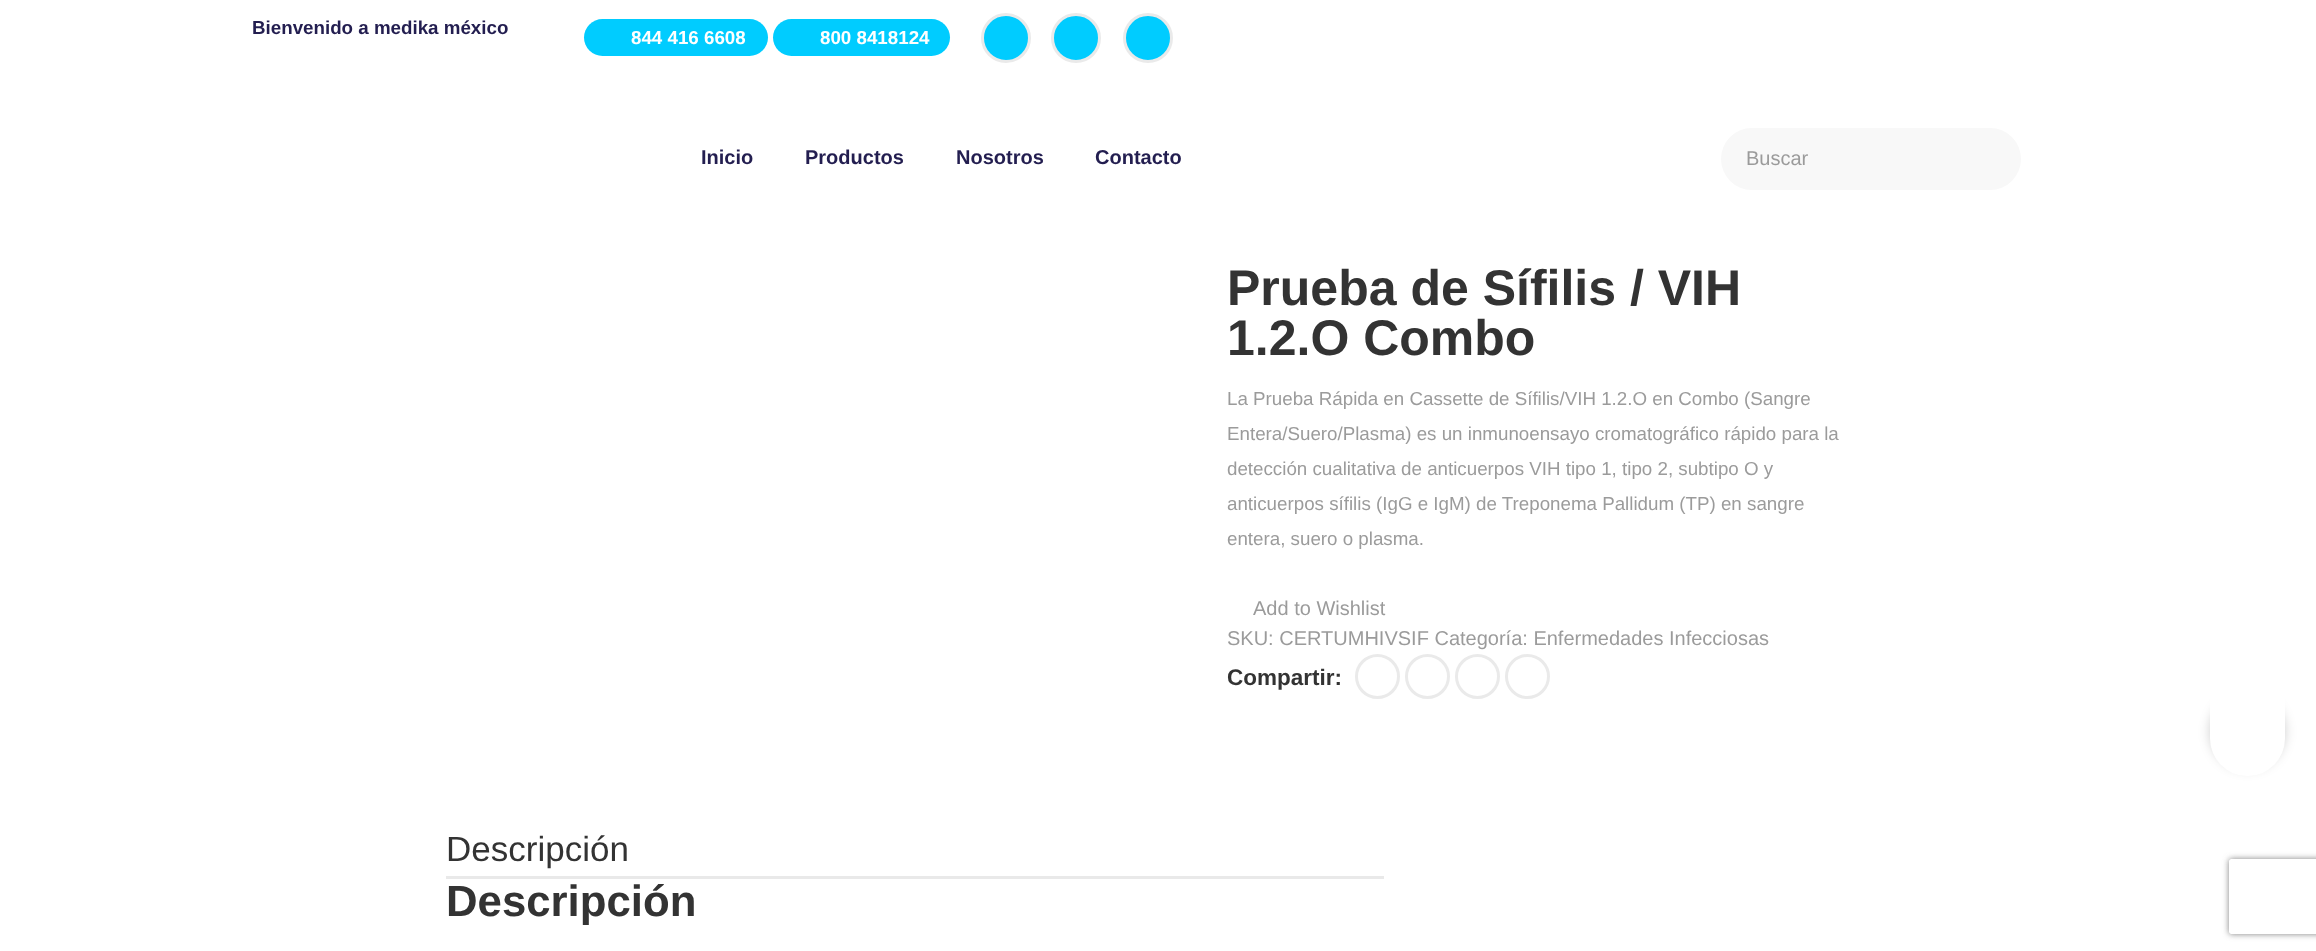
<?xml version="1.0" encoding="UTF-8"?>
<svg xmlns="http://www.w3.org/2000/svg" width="2316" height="951">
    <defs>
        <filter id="blur1" x="-50%" y="-200%" width="200%" height="500%"><feGaussianBlur stdDeviation="6"/></filter>
        <clipPath id="clip1"><path d="M 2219 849 H 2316 V 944 H 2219 Z M 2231.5 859 H 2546.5 C 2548 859 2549 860 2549 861.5 V 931.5 C 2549 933 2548 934 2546.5 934 H 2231.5 C 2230 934 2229 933 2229 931.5 V 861.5 C 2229 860 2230 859 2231.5 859 Z" clip-rule="evenodd"/></clipPath>
        <filter id="blur2" x="-50%" y="-200%" width="200%" height="500%"><feGaussianBlur stdDeviation="3"/></filter>
    </defs>
    <rect width="100%" height="100%" fill="#FFFFFF"/>
    <text x="252" y="34" font-family="Liberation Sans" font-size="18.75" font-weight="700" fill="#231E50">Bienvenido a medika méxico</text>
    <rect x="584" y="19" width="184" height="37" rx="18.5" fill="#00CCFF"/>
    <text x="631" y="44" font-family="Liberation Sans" font-size="18.75" font-weight="700" fill="#FFFFFF">844 416 6608</text>
    <rect x="773" y="19" width="177" height="37" rx="18.5" fill="#00CCFF"/>
    <text x="820" y="44" font-family="Liberation Sans" font-size="18.75" font-weight="700" fill="#FFFFFF">800 8418124</text>
    <circle cx="1006" cy="38" r="23.5" fill="#00CCFF" stroke="#EAEAEA" stroke-width="3"/>
    <circle cx="1076" cy="38" r="23.5" fill="#00CCFF" stroke="#EAEAEA" stroke-width="3"/>
    <circle cx="1148" cy="38" r="23.5" fill="#00CCFF" stroke="#EAEAEA" stroke-width="3"/>
    <text x="701" y="164" font-family="Liberation Sans" font-size="20" font-weight="700" fill="#231E50">Inicio</text>
    <text x="805" y="164" font-family="Liberation Sans" font-size="20" font-weight="700" fill="#231E50">Productos</text>
    <text x="956" y="164" font-family="Liberation Sans" font-size="20" font-weight="700" fill="#231E50">Nosotros</text>
    <text x="1095" y="164" font-family="Liberation Sans" font-size="20" font-weight="700" fill="#231E50">Contacto</text>
    <rect x="1721" y="128" width="300" height="62" rx="31" fill="#F8F8F8"/>
    <text x="1746" y="165" font-family="Liberation Sans" font-size="20" fill="#9B9B9B">Buscar</text>
    <text font-family="Liberation Sans" font-size="50" font-weight="700" fill="#333333">
        <tspan x="1227" y="305">Prueba de Sífilis / VIH</tspan>
        <tspan x="1227" y="355">1.2.O Combo</tspan>
    </text>
    <text font-family="Liberation Sans" font-size="18.75" fill="#9B9B9B">
        <tspan x="1227" y="405">La Prueba Rápida en Cassette de Sífilis/VIH 1.2.O en Combo (Sangre</tspan>
        <tspan x="1227" y="440">Entera/Suero/Plasma) es un inmunoensayo cromatográfico rápido para la</tspan>
        <tspan x="1227" y="475">detección cualitativa de anticuerpos VIH tipo 1, tipo 2, subtipo O y</tspan>
        <tspan x="1227" y="510">anticuerpos sífilis (IgG e IgM) de Treponema Pallidum (TP) en sangre</tspan>
        <tspan x="1227" y="545">entera, suero o plasma.</tspan>
    </text>
    <text x="1253" y="615" font-family="Liberation Sans" font-size="20" fill="#9B9B9B">Add to Wishlist</text>
    <text x="1227" y="645" font-family="Liberation Sans" font-size="20" fill="#9B9B9B">SKU: CERTUMHIVSIF Categoría: Enfermedades Infecciosas</text>
    <text x="1227" y="685" font-family="Liberation Sans" font-size="22.5" font-weight="700" fill="#333333">Compartir:</text>
    <circle cx="1377.5" cy="676.5" r="21" fill="none" stroke="#EAEAEA" stroke-width="3"/>
    <circle cx="1427.5" cy="676.5" r="21" fill="none" stroke="#EAEAEA" stroke-width="3"/>
    <circle cx="1477.5" cy="676.5" r="21" fill="none" stroke="#EAEAEA" stroke-width="3"/>
    <circle cx="1527.5" cy="676.5" r="21" fill="none" stroke="#EAEAEA" stroke-width="3"/>
    <rect x="446" y="876" width="938" height="3" fill="#E9E9E9"/>
    <text x="446" y="861" font-family="Liberation Sans" font-size="35" fill="#333333">Descripción</text>
    <text x="446" y="916" font-family="Liberation Sans" font-size="43.75" font-weight="700" fill="#333333">Descripción</text>
    <rect x="2210" y="694" width="75" height="75" rx="37.5" fill="#000000" fill-opacity="0.2" filter="url(#blur1)"/>
    <rect x="2210" y="589" width="75" height="187" rx="37.5" fill="#FFFFFF"/>
    <g clip-path="url(#clip1)">
        <rect x="2229" y="859" width="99" height="75" rx="2.5" fill="#808080" filter="url(#blur2)"/>
    </g>
</svg>
